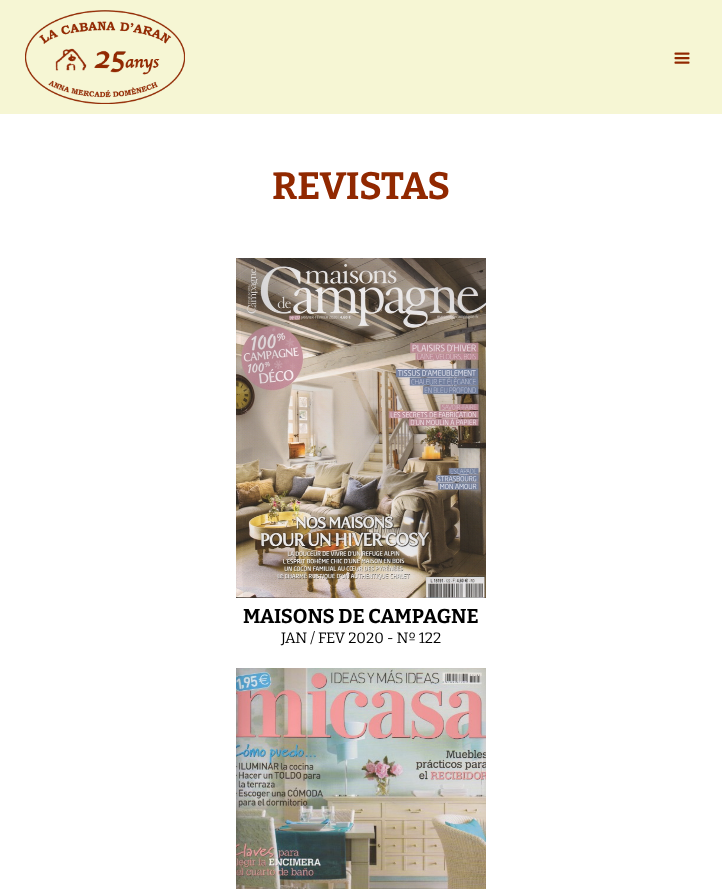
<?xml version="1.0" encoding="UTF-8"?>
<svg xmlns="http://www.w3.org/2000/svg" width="722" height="889">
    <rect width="100%" height="100%" fill="#FFFFFF"/>
    <rect x="0" y="0" width="722" height="114" fill="#F6F6D4"/>
    <image x="25" y="10" width="160" height="94" href="img_01.png"/>
    <image x="674" y="52" width="16" height="12" href="img_02.png"/>
    <text x="272" y="199" font-family="Bitter" font-size="38" font-weight="700" fill="#912800">REVISTAS</text>
    <image x="236" y="258" width="250" height="340" href="img_03.png"/>
    <text x="243" y="623" font-family="Bitter" font-size="20" font-weight="700" fill="#000000">MAISONS DE CAMPAGNE</text>
    <text x="281" y="643" font-family="Bitter" font-size="15" fill="#000000">JAN / FEV 2020 - Nº 122</text>
    <image x="236" y="668" width="250" height="221" href="img_04.png"/>
</svg>
